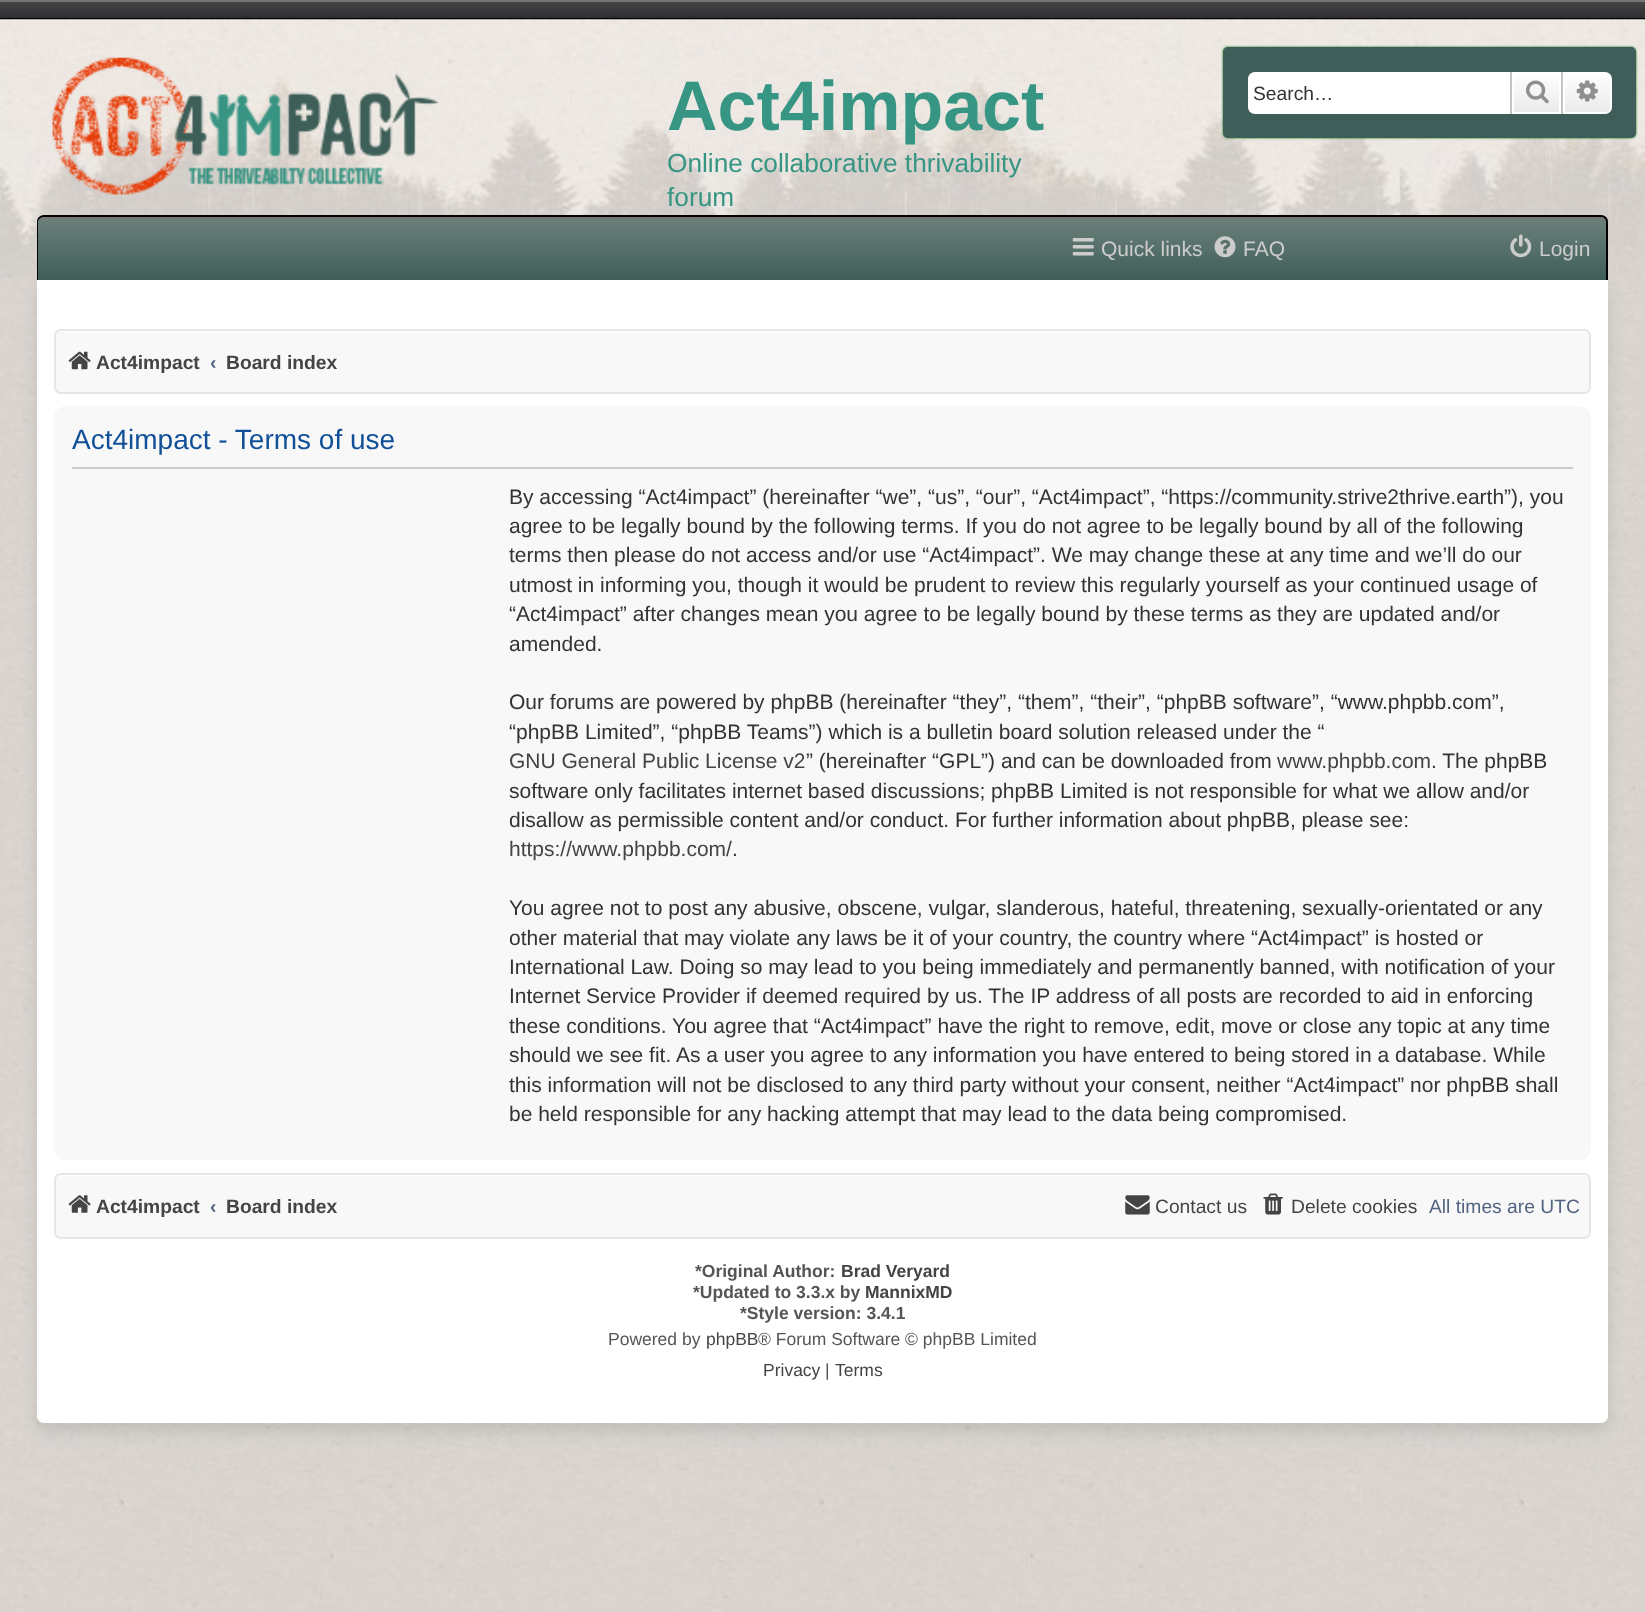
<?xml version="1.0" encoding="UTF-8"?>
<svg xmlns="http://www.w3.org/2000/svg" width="1645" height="1612">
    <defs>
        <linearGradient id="g1" gradientUnits="userSpaceOnUse" x1="823" y1="0" x2="823" y2="18"><stop offset="0" stop-color="#444547"/><stop offset="1" stop-color="#2F2F31"/></linearGradient>
        <filter id="blur1" x="-50%" y="-200%" width="200%" height="500%"><feGaussianBlur stdDeviation="1"/></filter>
        <linearGradient id="g2" gradientUnits="userSpaceOnUse" x1="1537" y1="72" x2="1537" y2="114"><stop offset="0" stop-color="#FFFFFF"/><stop offset="1" stop-color="#E9E9E9"/></linearGradient>
        <linearGradient id="g3" gradientUnits="userSpaceOnUse" x1="1587" y1="72" x2="1587" y2="114"><stop offset="0" stop-color="#FFFFFF"/><stop offset="1" stop-color="#E9E9E9"/></linearGradient>
        <clipPath id="clip1"><path d="M 44 215 H 1601 C 1605 215 1608 218 1608 222 V 280 H 37 V 222 C 37 218 40 215 44 215 Z"/></clipPath>
        <linearGradient id="g4" gradientUnits="userSpaceOnUse" x1="823" y1="217" x2="823" y2="280"><stop offset="0" stop-color="#6D817B"/><stop offset="1" stop-color="#3F5E59"/></linearGradient>
        <filter id="blur2" x="-50%" y="-200%" width="200%" height="500%"><feGaussianBlur stdDeviation="8"/></filter>
    </defs>
    <rect width="100%" height="100%" fill="#FFFFFF"/>
    <image x="0" y="1444" width="1645" height="168" href="img_01.png"/>
    <image x="0" y="278" width="1645" height="1166" href="img_02.png"/>
    <rect x="0" y="2" width="1645" height="16" fill="url(#g1)"/>
    <rect x="0" y="0" width="1645" height="2" fill="#757575"/>
    <rect x="0" y="18" width="1645" height="2" fill="#000000"/>
    <image x="0" y="19" width="1645" height="259" href="img_03.png"/>
    <image x="52" y="57" width="387" height="138" href="img_04.png"/>
    <text x="667" y="130" font-family="Liberation Sans" font-size="70" font-weight="700" fill="#379584">Act4impact</text>
    <text font-family="Liberation Sans" font-size="26.25" fill="#379584">
        <tspan x="667" y="172">Online collaborative thrivability</tspan>
        <tspan x="667" y="206">forum</tspan>
    </text>
    <rect x="1223" y="47" width="413" height="91" rx="5" fill="#007500" filter="url(#blur1)"/>
    <rect x="1223" y="47" width="413" height="91" rx="5" fill="#3F5E59"/>
    <path d="M 1255 72 H 1510 V 114 H 1255 C 1251 114 1248 111 1248 107 V 79 C 1248 75 1251 72 1255 72 Z" fill="#FFFFFF"/>
    <text x="1253" y="100" font-family="Liberation Sans" font-size="19.25" fill="#333333">Search…</text>
    <rect x="1514" y="74" width="45" height="38" fill="url(#g2)"/>
    <rect x="1513" y="73" width="47" height="40" fill="none" stroke="#FFFFFF" stroke-width="2"/>
    <rect x="1561" y="72" width="2" height="42" fill="#C7C3BF"/>
    <rect x="1510" y="72" width="2" height="42" fill="#C7C3BF"/>
    <image x="1526" y="80" width="23" height="24" href="img_05.png"/>
    <path d="M 1564 73 H 1605 C 1608.5 73 1611 75.5 1611 79 V 107 C 1611 110.5 1608.5 113 1605 113 H 1564 Z" fill="url(#g3)" stroke="#FFFFFF" stroke-width="2"/>
    <image x="1576" y="80" width="22" height="22" href="img_06.png"/>
    <g clip-path="url(#clip1)">
        <rect x="37" y="217" width="1571" height="63" fill="url(#g4)"/>
    </g>
    <path d="M 44 219 H 1601 C 1604 219 1606 221 1606 224 V 280 H 1607 V 222 C 1607 219 1605 217 1602 217 H 44 C 42 217 39 219 39 221 C 40 220 42 219 44 219 Z" fill="#757575"/>
    <path d="M 44 215 H 1601 C 1605 215 1608 218 1608 222 V 280 H 37 V 222 C 37 218 40 215 44 215 Z M 44 217 H 1601 C 1604 217 1606 219 1606 222 V 280 H 38 V 222 C 38 219 41 217 44 217 Z" fill="#000000" fill-rule="evenodd"/>
    <image x="1072" y="238" width="22" height="18" href="img_07.png"/>
    <text x="1101" y="256" font-family="Liberation Sans" font-size="21" fill="#CCCCCC">Quick links</text>
    <image x="1214" y="236" width="22" height="22" href="img_08.png"/>
    <text x="1243" y="256" font-family="Liberation Sans" font-size="21" fill="#CCCCCC">FAQ</text>
    <image x="1510" y="234" width="22" height="24" href="img_09.png"/>
    <text x="1539" y="256" font-family="Liberation Sans" font-size="21" fill="#CCCCCC">Login</text>
    <rect x="37" y="289" width="1571" height="1143" rx="7" fill="#000000" fill-opacity="0.1" filter="url(#blur2)"/>
    <path d="M 37 280 H 1608 V 1416 C 1608 1420 1605 1423 1601 1423 H 44 C 40 1423 37 1420 37 1416 Z" fill="#FFFFFF"/>
    <rect x="54" y="329" width="1537" height="65" rx="7" fill="#F8F8F8"/>
    <path d="M 61 332 H 1584 C 1587 332 1589 335 1589 338 C 1589 335 1588 331 1584 331 H 61 C 57 331 56 335 56 338 C 56 335 58 332 61 332 Z" fill="#FFFFFF"/>
    <rect x="55" y="330" width="1535" height="63" rx="6" fill="none" stroke="#E6E6E6" stroke-width="2"/>
    <image x="68" y="351" width="23" height="19" href="img_10.png"/>
    <text x="96" y="369" font-family="Liberation Sans" font-size="19.25" font-weight="700" fill="#444444">Act4impact</text>
    <text x="210" y="369" font-family="Liberation Sans" font-size="19.25" font-weight="700" fill="#536482">‹</text>
    <text x="226" y="369" font-family="Liberation Sans" font-size="19.25" font-weight="700" fill="#444444">Board index</text>
    <rect x="54" y="406" width="1537" height="754" rx="12" fill="#F8F8F8"/>
    <rect x="72" y="467" width="1501" height="2" fill="#CCCCCC"/>
    <text x="72" y="449" font-family="Liberation Sans" font-size="28" fill="#115098">Act4impact - Terms of use</text>
    <text font-family="Liberation Sans" font-size="21" fill="#333333">
        <tspan x="509" y="504">By accessing “Act4impact” (hereinafter “we”, “us”, “our”, “Act4impact”, “https://community.strive2thrive.earth”), you</tspan>
        <tspan x="509" y="533">agree to be legally bound by the following terms. If you do not agree to be legally bound by all of the following</tspan>
        <tspan x="509" y="562">terms then please do not access and/or use “Act4impact”. We may change these at any time and we’ll do our</tspan>
        <tspan x="509" y="592">utmost in informing you, though it would be prudent to review this regularly yourself as your continued usage of</tspan>
        <tspan x="509" y="621">“Act4impact” after changes mean you agree to be legally bound by these terms as they are updated and/or</tspan>
        <tspan x="509" y="651">amended.</tspan>
    </text>
    <text font-family="Liberation Sans" font-size="21" fill="#333333">
        <tspan x="509" y="709">Our forums are powered by phpBB (hereinafter “they”, “them”, “their”, “phpBB software”, “www.phpbb.com”,</tspan>
        <tspan x="509" y="739">“phpBB Limited”, “phpBB Teams”) which is a bulletin board solution released under the “</tspan>
    </text>
    <text x="509" y="768" font-family="Liberation Sans" font-size="21" fill="#444444">GNU General Public License v2</text>
    <text x="806" y="768" font-family="Liberation Sans" font-size="21" fill="#333333">” (hereinafter “GPL”) and can be downloaded from</text>
    <text x="1277" y="768" font-family="Liberation Sans" font-size="21" fill="#444444">www.phpbb.com</text>
    <text x="1431" y="768" font-family="Liberation Sans" font-size="21" fill="#333333">. The phpBB</text>
    <text font-family="Liberation Sans" font-size="21" fill="#333333">
        <tspan x="509" y="798">software only facilitates internet based discussions; phpBB Limited is not responsible for what we allow and/or</tspan>
        <tspan x="509" y="827">disallow as permissible content and/or conduct. For further information about phpBB, please see:</tspan>
    </text>
    <text x="509" y="856" font-family="Liberation Sans" font-size="21" fill="#444444">https://www.phpbb.com/</text>
    <text x="732" y="856" font-family="Liberation Sans" font-size="21" fill="#333333">.</text>
    <text font-family="Liberation Sans" font-size="21" fill="#333333">
        <tspan x="509" y="915">You agree not to post any abusive, obscene, vulgar, slanderous, hateful, threatening, sexually-orientated or any</tspan>
        <tspan x="509" y="945">other material that may violate any laws be it of your country, the country where “Act4impact” is hosted or</tspan>
        <tspan x="509" y="974">International Law. Doing so may lead to you being immediately and permanently banned, with notification of your</tspan>
        <tspan x="509" y="1003">Internet Service Provider if deemed required by us. The IP address of all posts are recorded to aid in enforcing</tspan>
        <tspan x="509" y="1033">these conditions. You agree that “Act4impact” have the right to remove, edit, move or close any topic at any time</tspan>
        <tspan x="509" y="1062">should we see fit. As a user you agree to any information you have entered to being stored in a database. While</tspan>
        <tspan x="509" y="1092">this information will not be disclosed to any third party without your consent, neither “Act4impact” nor phpBB shall</tspan>
        <tspan x="509" y="1121">be held responsible for any hacking attempt that may lead to the data being compromised.</tspan>
    </text>
    <rect x="54" y="1173" width="1537" height="66" rx="7" fill="#F8F8F8"/>
    <path d="M 61 1176 H 1584 C 1587 1176 1589 1178 1589 1181 C 1589 1178 1588 1174 1584 1174 H 61 C 57 1174 56 1178 56 1181 C 56 1178 58 1176 61 1176 Z" fill="#FFFFFF"/>
    <rect x="55" y="1174" width="1535" height="64" rx="6" fill="none" stroke="#E6E6E6" stroke-width="2"/>
    <image x="68" y="1195" width="23" height="18" href="img_11.png"/>
    <text x="96" y="1213" font-family="Liberation Sans" font-size="19.25" font-weight="700" fill="#444444">Act4impact</text>
    <text x="210" y="1213" font-family="Liberation Sans" font-size="19.25" font-weight="700" fill="#536482">‹</text>
    <text x="226" y="1213" font-family="Liberation Sans" font-size="19.25" font-weight="700" fill="#444444">Board index</text>
    <image x="1125" y="1195" width="25" height="20" href="img_12.png"/>
    <text x="1155" y="1213" font-family="Liberation Sans" font-size="19.25" fill="#444444">Contact us</text>
    <image x="1263" y="1193" width="20" height="22" href="img_13.png"/>
    <text x="1291" y="1213" font-family="Liberation Sans" font-size="19.25" fill="#444444">Delete cookies</text>
    <text x="1429" y="1213" font-family="Liberation Sans" font-size="19.25" fill="#536482">All times are UTC</text>
    <text x="695" y="1277" font-family="Liberation Sans" font-size="17.5" font-weight="700" fill="#555555">*Original Author:</text>
    <text x="841" y="1277" font-family="Liberation Sans" font-size="17.5" font-weight="700" fill="#444444">Brad Veryard</text>
    <text x="693" y="1298" font-family="Liberation Sans" font-size="17.5" font-weight="700" fill="#555555">*Updated to 3.3.x by</text>
    <text x="865" y="1298" font-family="Liberation Sans" font-size="17.5" font-weight="700" fill="#444444">MannixMD</text>
    <text x="740" y="1319" font-family="Liberation Sans" font-size="17.5" font-weight="700" fill="#555555">*Style version: 3.4.1</text>
    <text x="608" y="1345" font-family="Liberation Sans" font-size="17.5" fill="#555555">Powered by</text>
    <text x="706" y="1345" font-family="Liberation Sans" font-size="17.5" fill="#444444">phpBB</text>
    <text x="758" y="1345" font-family="Liberation Sans" font-size="17.5" fill="#555555">® Forum Software © phpBB Limited</text>
    <text x="763" y="1376" font-family="Liberation Sans" font-size="17.5" fill="#444444">Privacy</text>
    <text x="825" y="1376" font-family="Liberation Sans" font-size="17.5" fill="#555555">|</text>
    <text x="835" y="1376" font-family="Liberation Sans" font-size="17.5" fill="#444444">Terms</text>
</svg>
